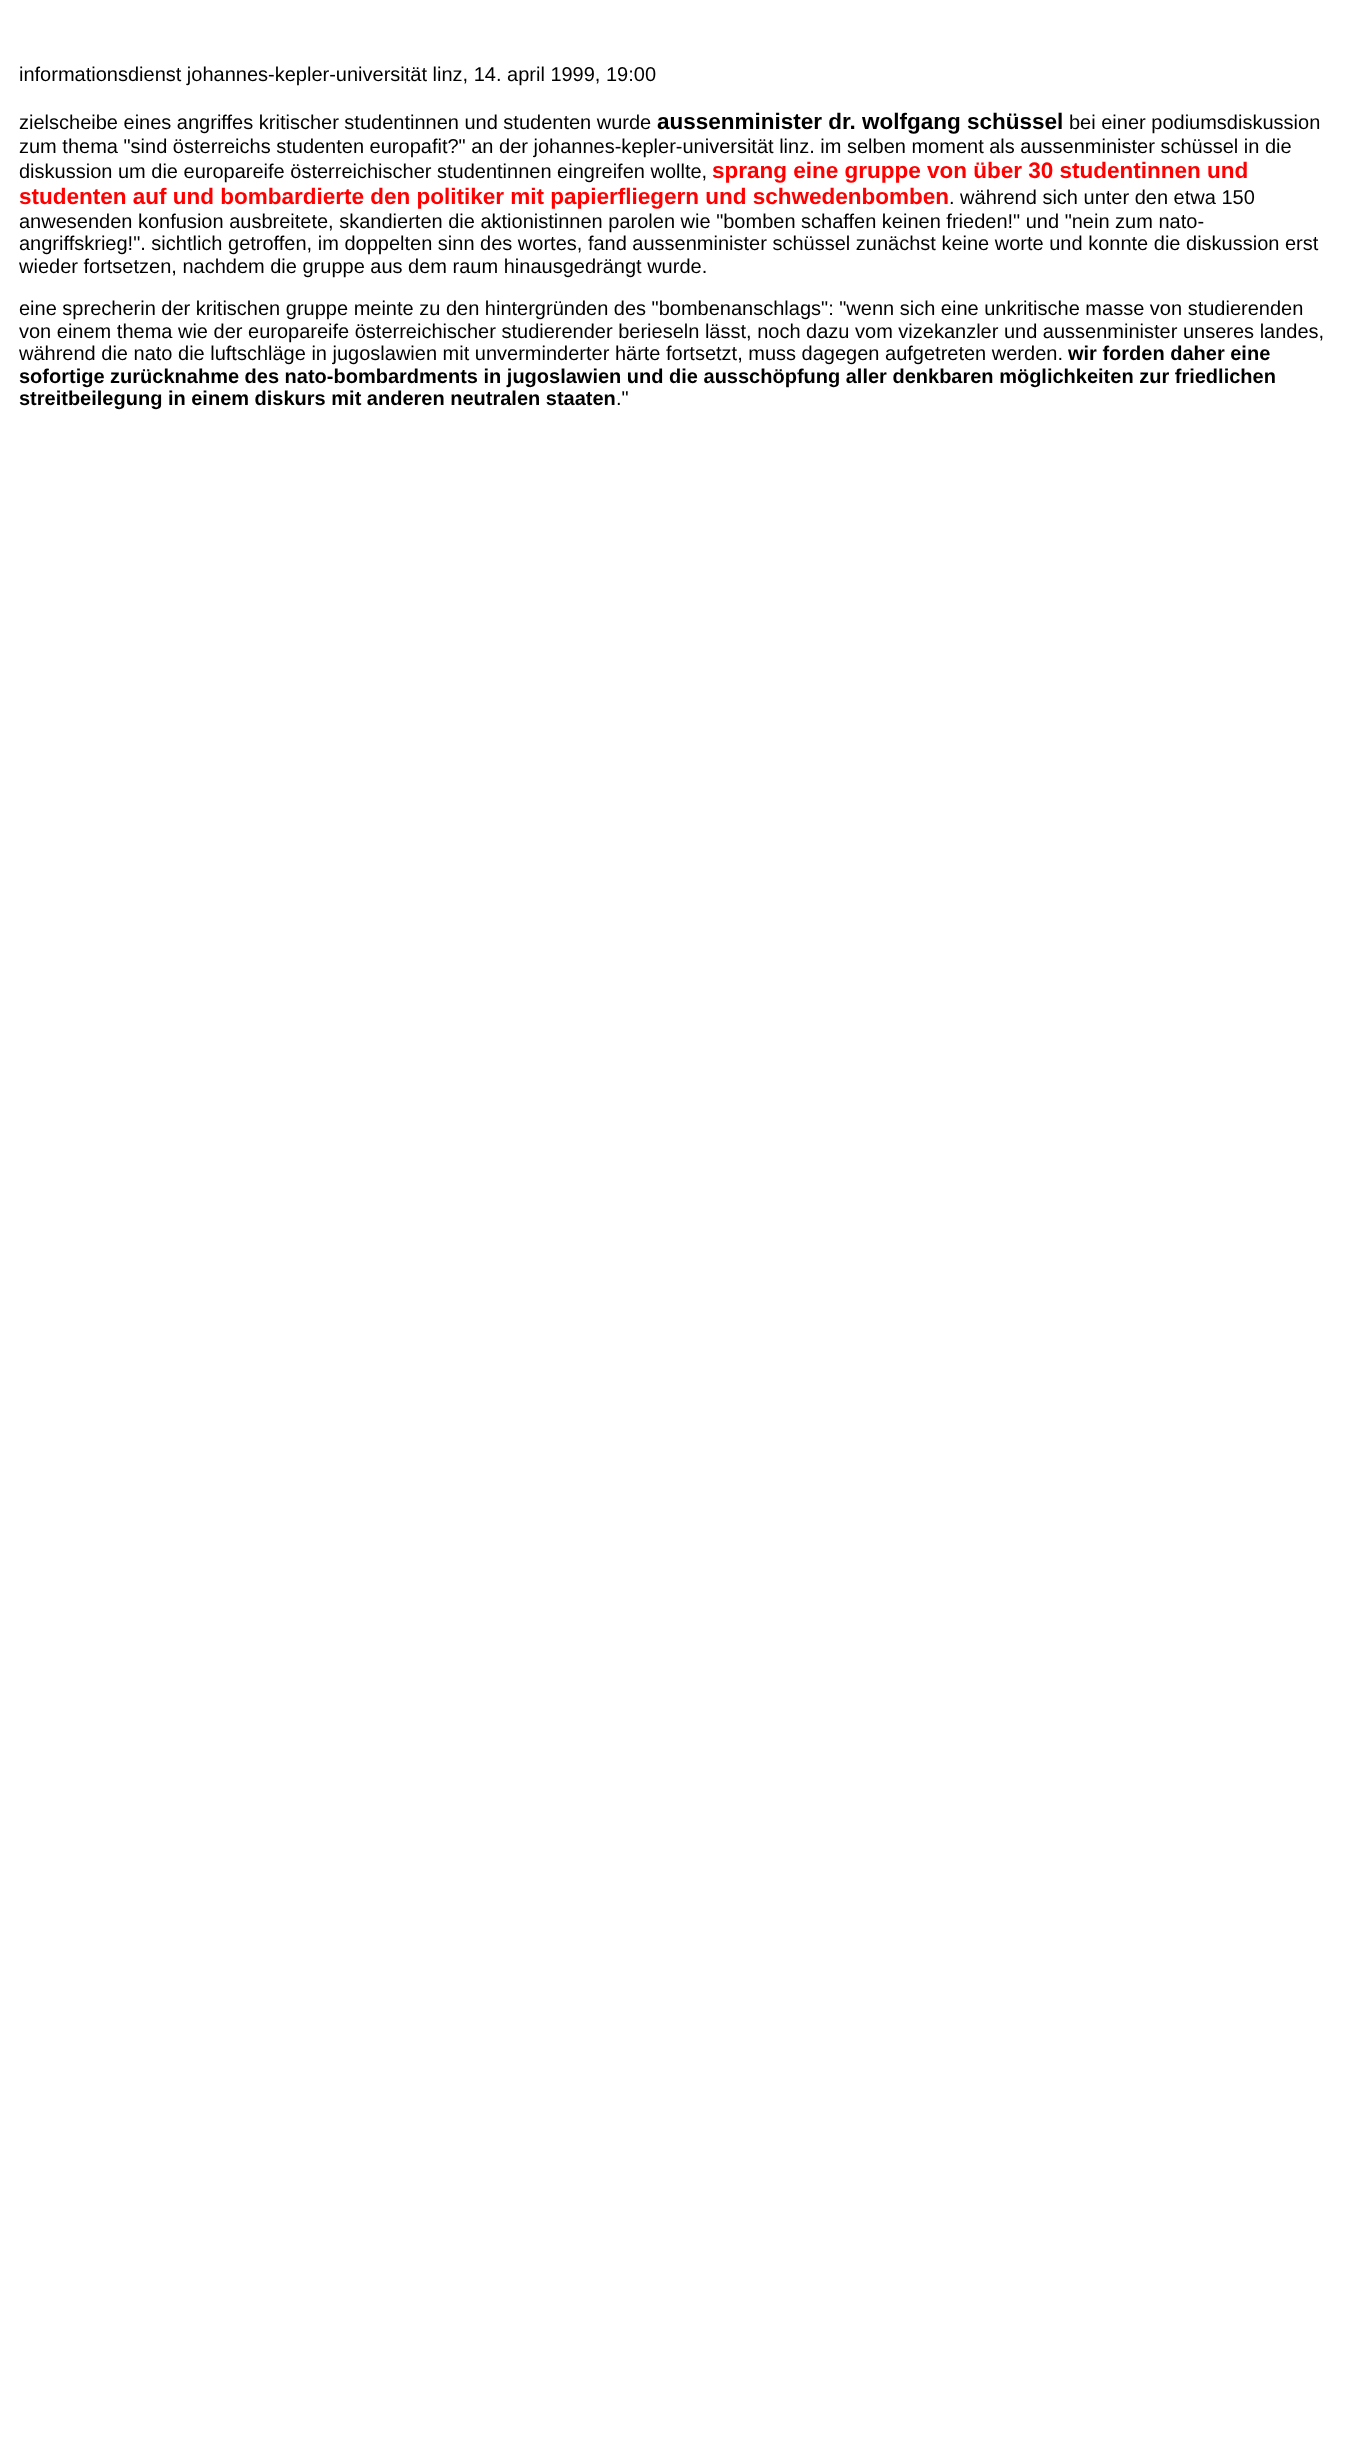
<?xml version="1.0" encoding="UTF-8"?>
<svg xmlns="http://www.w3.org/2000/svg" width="1348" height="2457">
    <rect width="100%" height="100%" fill="#FFFFFF"/>
    <text x="19" y="81" font-family="Liberation Sans" font-size="20" fill="#000000">informationsdienst johannes-kepler-universität linz, 14. april 1999, 19:00</text>
    <text x="19" y="129" font-family="Liberation Sans" font-size="20" fill="#000000">zielscheibe eines angriffes kritischer studentinnen und studenten wurde</text>
    <text x="657" y="129" font-family="Liberation Sans" font-size="22.5" font-weight="700" fill="#000000">aussenminister dr. wolfgang schüssel</text>
    <text x="1069" y="129" font-family="Liberation Sans" font-size="20" fill="#000000">bei einer podiumsdiskussion</text>
    <text font-family="Liberation Sans" font-size="20" fill="#000000">
        <tspan x="19" y="153">zum thema "sind österreichs studenten europafit?" an der johannes-kepler-universität linz. im selben moment als aussenminister schüssel in die</tspan>
        <tspan x="19" y="178">diskussion um die europareife österreichischer studentinnen eingreifen wollte,</tspan>
    </text>
    <text x="712" y="178" font-family="Liberation Sans" font-size="22.5" font-weight="700" fill="#FF0000">sprang eine gruppe von über 30 studentinnen und</text>
    <text x="19" y="204" font-family="Liberation Sans" font-size="22.5" font-weight="700" fill="#FF0000">studenten auf und bombardierte den politiker mit papierfliegern und schwedenbomben</text>
    <text x="949" y="204" font-family="Liberation Sans" font-size="20" fill="#000000">. während sich unter den etwa 150</text>
    <text font-family="Liberation Sans" font-size="20" fill="#000000">
        <tspan x="19" y="228">anwesenden konfusion ausbreitete, skandierten die aktionistinnen parolen wie "bomben schaffen keinen frieden!" und "nein zum nato-</tspan>
        <tspan x="19" y="250">angriffskrieg!". sichtlich getroffen, im doppelten sinn des wortes, fand aussenminister schüssel zunächst keine worte und konnte die diskussion erst</tspan>
        <tspan x="19" y="273">wieder fortsetzen, nachdem die gruppe aus dem raum hinausgedrängt wurde.</tspan>
    </text>
    <text font-family="Liberation Sans" font-size="20" fill="#000000">
        <tspan x="19" y="315">eine sprecherin der kritischen gruppe meinte zu den hintergründen des "bombenanschlags": "wenn sich eine unkritische masse von studierenden</tspan>
        <tspan x="19" y="338">von einem thema wie der europareife österreichischer studierender berieseln lässt, noch dazu vom vizekanzler und aussenminister unseres landes,</tspan>
        <tspan x="19" y="360">während die nato die luftschläge in jugoslawien mit unverminderter härte fortsetzt, muss dagegen aufgetreten werden.</tspan>
    </text>
    <text x="1068" y="360" font-family="Liberation Sans" font-size="20" font-weight="700" fill="#000000">wir forden daher eine</text>
    <text font-family="Liberation Sans" font-size="20" font-weight="700" fill="#000000">
        <tspan x="19" y="383">sofortige zurücknahme des nato-bombardments in jugoslawien und die ausschöpfung aller denkbaren möglichkeiten zur friedlichen</tspan>
        <tspan x="19" y="405">streitbeilegung in einem diskurs mit anderen neutralen staaten</tspan>
    </text>
    <text x="616" y="405" font-family="Liberation Sans" font-size="20" fill="#000000">."</text>
</svg>
